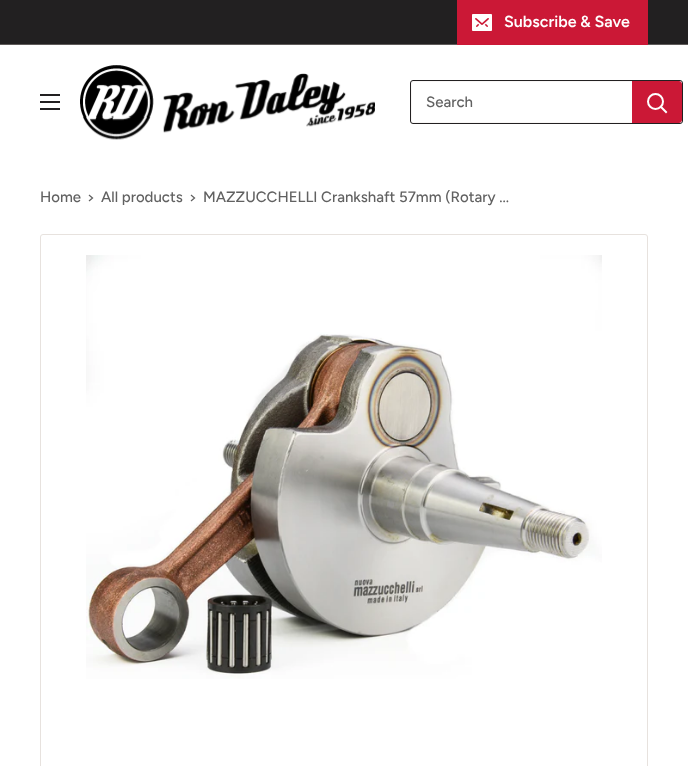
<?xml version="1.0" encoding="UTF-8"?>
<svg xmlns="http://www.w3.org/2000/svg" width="688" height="766">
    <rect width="100%" height="100%" fill="#FFFFFF"/>
    <rect x="0" y="0" width="688" height="44" fill="#222021"/>
    <rect x="0" y="44" width="688" height="1" fill="#5E5A59"/>
    <rect x="457" y="0" width="191" height="45" fill="#CB1836"/>
    <image x="472" y="14" width="20" height="17" href="img_01.png"/>
    <text x="504" y="27" font-family="Figtree" font-size="16" font-weight="600" fill="#FFFFFF">Subscribe &amp; Save</text>
    <image x="40" y="94" width="20" height="16" href="img_02.png"/>
    <image x="80" y="65" width="295" height="75" href="img_03.png"/>
    <path d="M 411 122 L 413 123 H 680 C 684 123 682 115 682 115 V 89 C 682 89 683 82 681 81 V 114 C 681 114 683 122 679 122 Z" fill="#F8F6F5"/>
    <path d="M 414 82 H 682 L 680 81 H 413 C 409 81 411 89 411 89 V 115 C 411 115 410 122 412 123 V 90 C 412 90 410 82 414 82 Z" fill="#F8F6F5"/>
    <rect x="410.5" y="80.5" width="272" height="43" rx="2.5" fill="none" stroke="#222021"/>
    <text x="426" y="107" font-family="Figtree" font-size="15" font-weight="500" fill="#616161">Search</text>
    <path d="M 632 81 H 679 C 680.5 81 682 82.5 682 84 V 120 C 682 121.5 680.5 123 679 123 H 632 Z" fill="#CB1836"/>
    <path d="M 666 112 L 661 107" fill="none" stroke="#FFFFFF" stroke-width="2" stroke-linecap="square"/>
    <circle cx="655.5" cy="101.5" r="7.5" fill="none" stroke="#FFFFFF" stroke-width="2"/>
    <text x="40" y="202" font-family="Figtree" font-size="15" font-weight="500" fill="#616161">Home</text>
    <path d="M 89.5 195.5 L 92.5 198 L 89.5 200.5" fill="none" stroke="#616161" stroke-width="1.3" stroke-linecap="square"/>
    <text x="101" y="202" font-family="Figtree" font-size="15" font-weight="500" fill="#616161">All products</text>
    <path d="M 191.5 195.5 L 194.5 198 L 191.5 200.5" fill="none" stroke="#616161" stroke-width="1.3" stroke-linecap="square"/>
    <text x="203" y="202" font-family="Figtree" font-size="15" font-weight="500" fill="#616161">MAZZUCCHELLI Crankshaft 57mm (Rotary ...</text>
    <rect x="40.5" y="234.5" width="607" height="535" rx="2.5" fill="none" stroke="#E7E2DE"/>
    <image x="86" y="255" width="516" height="424" href="img_04.png"/>
</svg>
